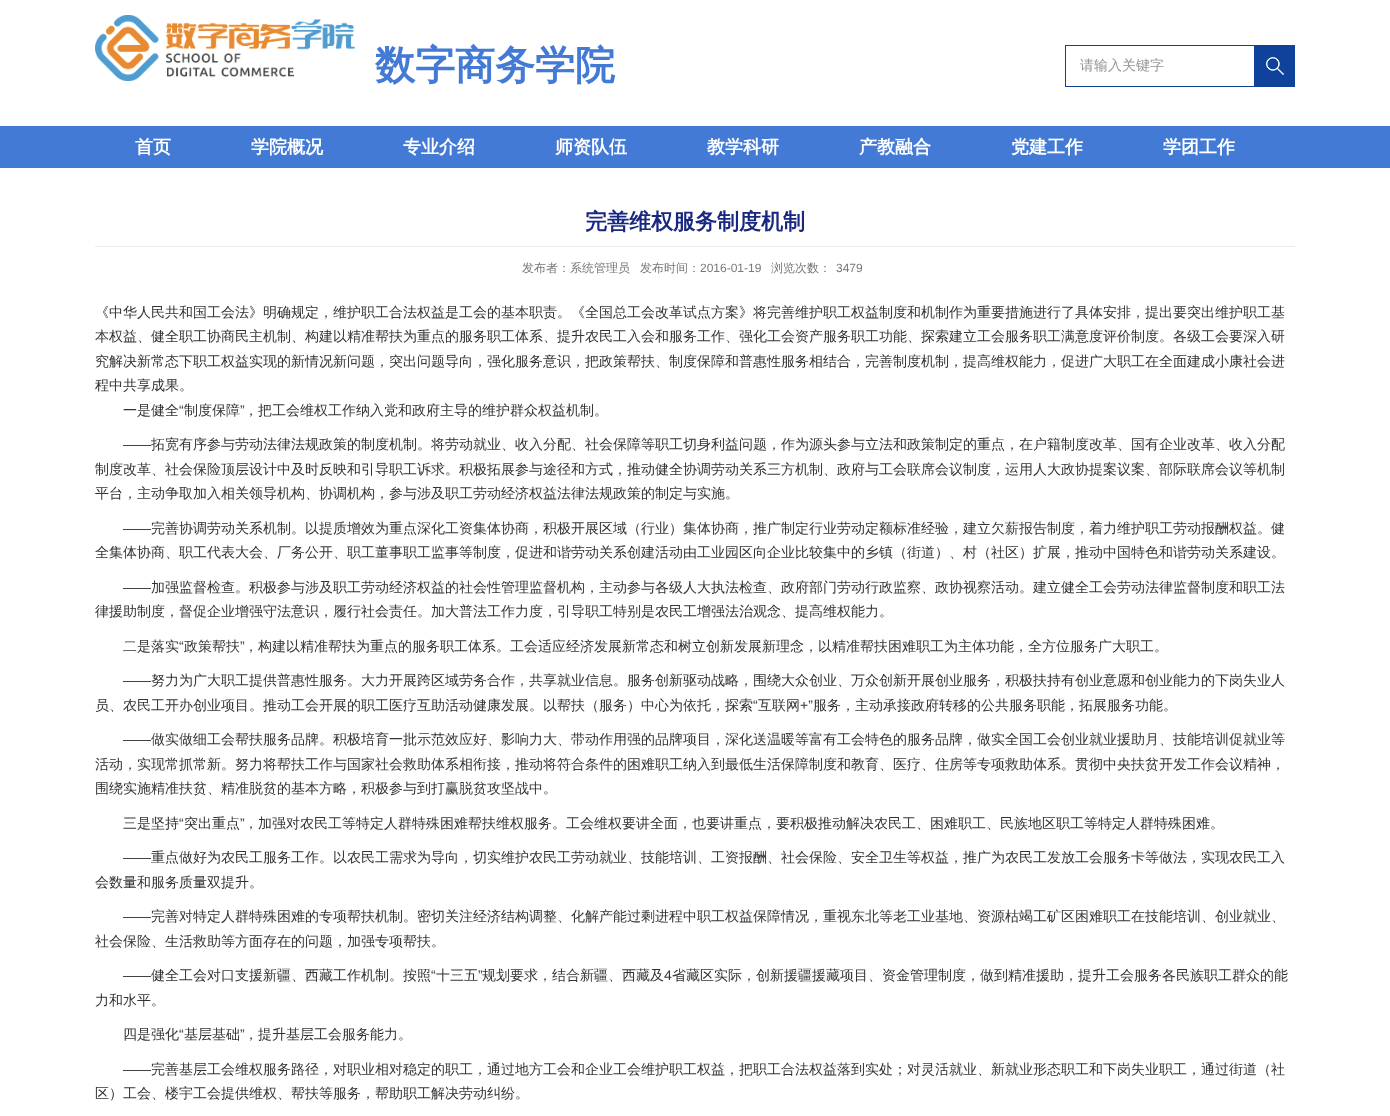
<?xml version="1.0" encoding="UTF-8"?>
<svg xmlns="http://www.w3.org/2000/svg" width="1390" height="1116">
    <rect width="100%" height="100%" fill="#FFFFFF"/>
    <image x="95" y="15" width="260" height="66" href="img_01.png"/>
    <text x="375" y="79" font-family="WenQuanYi Zen Hei" font-size="40" font-weight="700" fill="#437AD5">数字商务学院</text>
    <rect x="1065.5" y="45.5" width="229" height="41" fill="none" stroke="#0F429B"/>
    <text x="1080" y="70" font-family="WenQuanYi Zen Hei" font-size="14" font-weight="500" fill="#949494">请输入关键字</text>
    <rect x="1254" y="46" width="40" height="40" fill="#0F429B"/>
    <image x="1266" y="57" width="18" height="18" href="img_02.png"/>
    <rect x="0" y="126" width="1390" height="42" fill="#437AD5"/>
    <text x="135" y="153" font-family="WenQuanYi Zen Hei" font-size="18" font-weight="700" fill="#FFFFFF">首页</text>
    <text x="251" y="153" font-family="WenQuanYi Zen Hei" font-size="18" font-weight="700" fill="#FFFFFF">学院概况</text>
    <text x="403" y="153" font-family="WenQuanYi Zen Hei" font-size="18" font-weight="700" fill="#FFFFFF">专业介绍</text>
    <text x="555" y="153" font-family="WenQuanYi Zen Hei" font-size="18" font-weight="700" fill="#FFFFFF">师资队伍</text>
    <text x="707" y="153" font-family="WenQuanYi Zen Hei" font-size="18" font-weight="700" fill="#FFFFFF">教学科研</text>
    <text x="859" y="153" font-family="WenQuanYi Zen Hei" font-size="18" font-weight="700" fill="#FFFFFF">产教融合</text>
    <text x="1011" y="153" font-family="WenQuanYi Zen Hei" font-size="18" font-weight="700" fill="#FFFFFF">党建工作</text>
    <text x="1163" y="153" font-family="WenQuanYi Zen Hei" font-size="18" font-weight="700" fill="#FFFFFF">学团工作</text>
    <text x="585" y="229" font-family="WenQuanYi Zen Hei" font-size="22" font-weight="700" fill="#182880">完善维权服务制度机制</text>
    <rect x="95" y="246" width="1200" height="1" fill="#ECECEC"/>
    <text x="522" y="272" font-family="WenQuanYi Zen Hei" font-size="12" font-weight="500" fill="#787878">发布者：系统管理员</text>
    <text x="640" y="272" font-family="WenQuanYi Zen Hei" font-size="12" font-weight="500" fill="#787878">发布时间：</text>
    <text x="700" y="272" font-family="Liberation Sans" font-size="12" fill="#787878">2016-01-19</text>
    <text x="771" y="272" font-family="WenQuanYi Zen Hei" font-size="12" font-weight="500" fill="#787878">浏览次数：</text>
    <text x="836" y="272" font-family="Liberation Sans" font-size="12" fill="#787878">3479</text>
    <text font-family="WenQuanYi Zen Hei" font-size="14" font-weight="500" fill="#333333">
        <tspan x="95" y="317">《中华人民共和国工会法》明确规定，维护职工合法权益是工会的基本职责。《全国总工会改革试点方案》将完善维护职工权益制度和机制作为重要措施进行了具体安排，提出要突出维护职工基</tspan>
        <tspan x="95" y="341">本权益、健全职工协商民主机制、构建以精准帮扶为重点的服务职工体系、提升农民工入会和服务工作、强化工会资产服务职工功能、探索建立工会服务职工满意度评价制度。各级工会要深入研</tspan>
        <tspan x="95" y="366">究解决新常态下职工权益实现的新情况新问题，突出问题导向，强化服务意识，把政策帮扶、制度保障和普惠性服务相结合，完善制度机制，提高维权能力，促进广大职工在全面建成小康社会进</tspan>
        <tspan x="95" y="390">程中共享成果。</tspan>
    </text>
    <text x="123" y="415" font-family="WenQuanYi Zen Hei" font-size="14" font-weight="500" fill="#333333">一是健全</text>
    <text x="179" y="415" font-family="Liberation Sans" font-size="14" fill="#333333">“</text>
    <text x="184" y="415" font-family="WenQuanYi Zen Hei" font-size="14" font-weight="500" fill="#333333">制度保障</text>
    <text x="240" y="415" font-family="Liberation Sans" font-size="14" fill="#333333">”</text>
    <text x="244" y="415" font-family="WenQuanYi Zen Hei" font-size="14" font-weight="500" fill="#333333">，把工会维权工作纳入党和政府主导的维护群众权益机制。</text>
    <text x="123" y="449" font-family="Liberation Sans" font-size="14" fill="#333333">——</text>
    <text x="151" y="449" font-family="WenQuanYi Zen Hei" font-size="14" font-weight="500" fill="#333333">拓宽有序参与劳动法律法规政策的制度机制。将劳动就业、收入分配、社会保障等职工切身利益问题，作为源头参与立法和政策制定的重点，在户籍制度改革、国有企业改革、收入分配</text>
    <text font-family="WenQuanYi Zen Hei" font-size="14" font-weight="500" fill="#333333">
        <tspan x="95" y="474">制度改革、社会保险顶层设计中及时反映和引导职工诉求。积极拓展参与途径和方式，推动健全协调劳动关系三方机制、政府与工会联席会议制度，运用人大政协提案议案、部际联席会议等机制</tspan>
        <tspan x="95" y="498">平台，主动争取加入相关领导机构、协调机构，参与涉及职工劳动经济权益法律法规政策的制定与实施。</tspan>
    </text>
    <text x="123" y="533" font-family="Liberation Sans" font-size="14" fill="#333333">——</text>
    <text x="151" y="533" font-family="WenQuanYi Zen Hei" font-size="14" font-weight="500" fill="#333333">完善协调劳动关系机制。以提质增效为重点深化工资集体协商，积极开展区域（行业）集体协商，推广制定行业劳动定额标准经验，建立欠薪报告制度，着力维护职工劳动报酬权益。健</text>
    <text x="95" y="557" font-family="WenQuanYi Zen Hei" font-size="14" font-weight="500" fill="#333333">全集体协商、职工代表大会、厂务公开、职工董事职工监事等制度，促进和谐劳动关系创建活动由工业园区向企业比较集中的乡镇（街道）、村（社区）扩展，推动中国特色和谐劳动关系建设。</text>
    <text x="123" y="592" font-family="Liberation Sans" font-size="14" fill="#333333">——</text>
    <text x="151" y="592" font-family="WenQuanYi Zen Hei" font-size="14" font-weight="500" fill="#333333">加强监督检查。积极参与涉及职工劳动经济权益的社会性管理监督机构，主动参与各级人大执法检查、政府部门劳动行政监察、政协视察活动。建立健全工会劳动法律监督制度和职工法</text>
    <text x="95" y="616" font-family="WenQuanYi Zen Hei" font-size="14" font-weight="500" fill="#333333">律援助制度，督促企业增强守法意识，履行社会责任。加大普法工作力度，引导职工特别是农民工增强法治观念、提高维权能力。</text>
    <text x="123" y="651" font-family="WenQuanYi Zen Hei" font-size="14" font-weight="500" fill="#333333">二是落实</text>
    <text x="179" y="651" font-family="Liberation Sans" font-size="14" fill="#333333">“</text>
    <text x="184" y="651" font-family="WenQuanYi Zen Hei" font-size="14" font-weight="500" fill="#333333">政策帮扶</text>
    <text x="240" y="651" font-family="Liberation Sans" font-size="14" fill="#333333">”</text>
    <text x="244" y="651" font-family="WenQuanYi Zen Hei" font-size="14" font-weight="500" fill="#333333">，构建以精准帮扶为重点的服务职工体系。工会适应经济发展新常态和树立创新发展新理念，以精准帮扶困难职工为主体功能，全方位服务广大职工。</text>
    <text x="123" y="685" font-family="Liberation Sans" font-size="14" fill="#333333">——</text>
    <text x="151" y="685" font-family="WenQuanYi Zen Hei" font-size="14" font-weight="500" fill="#333333">努力为广大职工提供普惠性服务。大力开展跨区域劳务合作，共享就业信息。服务创新驱动战略，围绕大众创业、万众创新开展创业服务，积极扶持有创业意愿和创业能力的下岗失业人</text>
    <text x="95" y="710" font-family="WenQuanYi Zen Hei" font-size="14" font-weight="500" fill="#333333">员、农民工开办创业项目。推动工会开展的职工医疗互助活动健康发展。以帮扶（服务）中心为依托，探索</text>
    <text x="753" y="710" font-family="Liberation Sans" font-size="14" fill="#333333">“</text>
    <text x="758" y="710" font-family="WenQuanYi Zen Hei" font-size="14" font-weight="500" fill="#333333">互联网</text>
    <text x="800" y="710" font-family="Liberation Sans" font-size="14" fill="#333333">+”</text>
    <text x="813" y="710" font-family="WenQuanYi Zen Hei" font-size="14" font-weight="500" fill="#333333">服务，主动承接政府转移的公共服务职能，拓展服务功能。</text>
    <text x="123" y="744" font-family="Liberation Sans" font-size="14" fill="#333333">——</text>
    <text x="151" y="744" font-family="WenQuanYi Zen Hei" font-size="14" font-weight="500" fill="#333333">做实做细工会帮扶服务品牌。积极培育一批示范效应好、影响力大、带动作用强的品牌项目，深化送温暖等富有工会特色的服务品牌，做实全国工会创业就业援助月、技能培训促就业等</text>
    <text font-family="WenQuanYi Zen Hei" font-size="14" font-weight="500" fill="#333333">
        <tspan x="95" y="769">活动，实现常抓常新。努力将帮扶工作与国家社会救助体系相衔接，推动将符合条件的困难职工纳入到最低生活保障制度和教育、医疗、住房等专项救助体系。贯彻中央扶贫开发工作会议精神，</tspan>
        <tspan x="95" y="793">围绕实施精准扶贫、精准脱贫的基本方略，积极参与到打赢脱贫攻坚战中。</tspan>
    </text>
    <text x="123" y="828" font-family="WenQuanYi Zen Hei" font-size="14" font-weight="500" fill="#333333">三是坚持</text>
    <text x="179" y="828" font-family="Liberation Sans" font-size="14" fill="#333333">“</text>
    <text x="184" y="828" font-family="WenQuanYi Zen Hei" font-size="14" font-weight="500" fill="#333333">突出重点</text>
    <text x="240" y="828" font-family="Liberation Sans" font-size="14" fill="#333333">”</text>
    <text x="244" y="828" font-family="WenQuanYi Zen Hei" font-size="14" font-weight="500" fill="#333333">，加强对农民工等特定人群特殊困难帮扶维权服务。工会维权要讲全面，也要讲重点，要积极推动解决农民工、困难职工、民族地区职工等特定人群特殊困难。</text>
    <text x="123" y="862" font-family="Liberation Sans" font-size="14" fill="#333333">——</text>
    <text x="151" y="862" font-family="WenQuanYi Zen Hei" font-size="14" font-weight="500" fill="#333333">重点做好为农民工服务工作。以农民工需求为导向，切实维护农民工劳动就业、技能培训、工资报酬、社会保险、安全卫生等权益，推广为农民工发放工会服务卡等做法，实现农民工入</text>
    <text x="95" y="887" font-family="WenQuanYi Zen Hei" font-size="14" font-weight="500" fill="#333333">会数量和服务质量双提升。</text>
    <text x="123" y="921" font-family="Liberation Sans" font-size="14" fill="#333333">——</text>
    <text x="151" y="921" font-family="WenQuanYi Zen Hei" font-size="14" font-weight="500" fill="#333333">完善对特定人群特殊困难的专项帮扶机制。密切关注经济结构调整、化解产能过剩进程中职工权益保障情况，重视东北等老工业基地、资源枯竭工矿区困难职工在技能培训、创业就业、</text>
    <text x="95" y="946" font-family="WenQuanYi Zen Hei" font-size="14" font-weight="500" fill="#333333">社会保险、生活救助等方面存在的问题，加强专项帮扶。</text>
    <text x="123" y="980" font-family="Liberation Sans" font-size="14" fill="#333333">——</text>
    <text x="151" y="980" font-family="WenQuanYi Zen Hei" font-size="14" font-weight="500" fill="#333333">健全工会对口支援新疆、西藏工作机制。按照</text>
    <text x="431" y="980" font-family="Liberation Sans" font-size="14" fill="#333333">“</text>
    <text x="436" y="980" font-family="WenQuanYi Zen Hei" font-size="14" font-weight="500" fill="#333333">十三五</text>
    <text x="478" y="980" font-family="Liberation Sans" font-size="14" fill="#333333">”</text>
    <text x="482" y="980" font-family="WenQuanYi Zen Hei" font-size="14" font-weight="500" fill="#333333">规划要求，结合新疆、西藏及</text>
    <text x="664" y="980" font-family="Liberation Sans" font-size="14" fill="#333333">4</text>
    <text x="672" y="980" font-family="WenQuanYi Zen Hei" font-size="14" font-weight="500" fill="#333333">省藏区实际，创新援疆援藏项目、资金管理制度，做到精准援助，提升工会服务各民族职工群众的能</text>
    <text x="95" y="1005" font-family="WenQuanYi Zen Hei" font-size="14" font-weight="500" fill="#333333">力和水平。</text>
    <text x="123" y="1039" font-family="WenQuanYi Zen Hei" font-size="14" font-weight="500" fill="#333333">四是强化</text>
    <text x="179" y="1039" font-family="Liberation Sans" font-size="14" fill="#333333">“</text>
    <text x="184" y="1039" font-family="WenQuanYi Zen Hei" font-size="14" font-weight="500" fill="#333333">基层基础</text>
    <text x="240" y="1039" font-family="Liberation Sans" font-size="14" fill="#333333">”</text>
    <text x="244" y="1039" font-family="WenQuanYi Zen Hei" font-size="14" font-weight="500" fill="#333333">，提升基层工会服务能力。</text>
    <text x="123" y="1074" font-family="Liberation Sans" font-size="14" fill="#333333">——</text>
    <text x="151" y="1074" font-family="WenQuanYi Zen Hei" font-size="14" font-weight="500" fill="#333333">完善基层工会维权服务路径，对职业相对稳定的职工，通过地方工会和企业工会维护职工权益，把职工合法权益落到实处；对灵活就业、新就业形态职工和下岗失业职工，通过街道（社</text>
    <text x="95" y="1098" font-family="WenQuanYi Zen Hei" font-size="14" font-weight="500" fill="#333333">区）工会、楼宇工会提供维权、帮扶等服务，帮助职工解决劳动纠纷。</text>
</svg>
